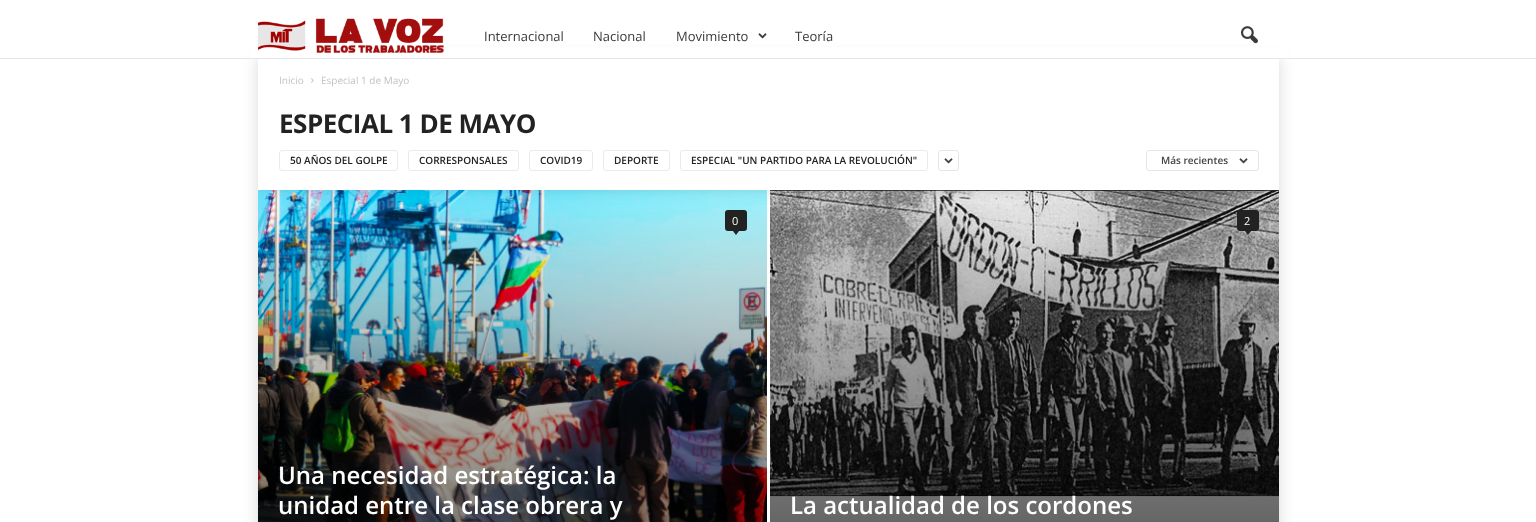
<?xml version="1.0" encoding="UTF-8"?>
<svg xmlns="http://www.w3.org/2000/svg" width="1536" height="522">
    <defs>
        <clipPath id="clip1"><path d="M 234 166 H 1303 V 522 H 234 Z M 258 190 H 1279 V 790 H 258 Z" clip-rule="evenodd"/></clipPath>
        <filter id="blur1" x="-50%" y="-200%" width="200%" height="500%"><feGaussianBlur stdDeviation="7.5"/></filter>
        <linearGradient id="g1" gradientUnits="userSpaceOnUse" x1="1025" y1="190" x2="1025" y2="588"><stop offset="0" stop-color="#000000" stop-opacity="0"/><stop offset="1" stop-color="#000000" stop-opacity="0.6"/></linearGradient>
    </defs>
    <rect width="100%" height="100%" fill="#FFFFFF"/>
    <g clip-path="url(#clip1)">
        <rect x="258" y="190" width="1021" height="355" fill="#000000" fill-opacity="0.15" filter="url(#blur1)"/>
    </g>
    <image x="258" y="190" width="509" height="332" href="img_06.png"/>
    <rect x="725" y="210" width="22" height="21" rx="3" fill="#222222"/>
    <image x="770" y="190" width="509" height="307" href="img_07.png"/>
    <rect x="770" y="497" width="509" height="25" fill="#CCCCCC"/>
    <rect x="770" y="204" width="509" height="318" fill="url(#g1)"/>
    <rect x="1237" y="210" width="22" height="21" rx="3" fill="#222222"/>
    <rect x="258" y="58" width="1021" height="132" fill="#000000" fill-opacity="0.15" filter="url(#blur1)"/>
    <rect x="250" y="47" width="1037" height="11" fill="#FFFFFF"/>
    <rect x="0" y="58" width="1536" height="1" fill="#E6E6E6"/>
    <image x="258" y="18" width="186" height="35" href="img_01.png"/>
    <text x="484" y="41" font-family="Open Sans" font-size="13" fill="#3A3A3A">Internacional</text>
    <text x="593" y="41" font-family="Open Sans" font-size="13" fill="#3A3A3A">Nacional</text>
    <text x="676" y="41" font-family="Open Sans" font-size="13" fill="#3A3A3A">Movimiento</text>
    <image x="758" y="33" width="9" height="6" href="img_02.png"/>
    <text x="795" y="41" font-family="Open Sans" font-size="13" fill="#3A3A3A">Teoría</text>
    <image x="1241" y="26" width="17" height="18" href="img_03.png"/>
    <rect x="258" y="59" width="1021" height="131" fill="#FFFFFF"/>
    <text x="279" y="84" font-family="Open Sans" font-size="10" fill="#C3C3C3">Inicio</text>
    <image x="311" y="78" width="3" height="5" href="img_04.png"/>
    <text x="321" y="84" font-family="Open Sans" font-size="10" fill="#C3C3C3">Especial 1 de Mayo</text>
    <text x="279" y="133" font-family="Open Sans" font-size="26" font-weight="700" letter-spacing="-0.5" fill="#222222">ESPECIAL 1 DE MAYO</text>
    <rect x="279.5" y="150.5" width="118" height="20" rx="2.5" fill="none" stroke="#EAEAEA"/>
    <text x="290" y="164" font-family="Open Sans" font-size="10" font-weight="600" fill="#222222">50 AÑOS DEL GOLPE</text>
    <rect x="408.5" y="150.5" width="110" height="20" rx="2.5" fill="none" stroke="#EAEAEA"/>
    <text x="419" y="164" font-family="Open Sans" font-size="10" font-weight="600" fill="#222222">CORRESPONSALES</text>
    <rect x="529.5" y="150.5" width="63" height="20" rx="2.5" fill="none" stroke="#EAEAEA"/>
    <text x="540" y="164" font-family="Open Sans" font-size="10" font-weight="600" fill="#222222">COVID19</text>
    <rect x="603.5" y="150.5" width="66" height="20" rx="2.5" fill="none" stroke="#EAEAEA"/>
    <text x="614" y="164" font-family="Open Sans" font-size="10" font-weight="600" fill="#222222">DEPORTE</text>
    <rect x="680.5" y="150.5" width="247" height="20" rx="2.5" fill="none" stroke="#EAEAEA"/>
    <text x="691" y="164" font-family="Open Sans" font-size="10" font-weight="600" fill="#222222">ESPECIAL "UN PARTIDO PARA LA REVOLUCIÓN"</text>
    <rect x="938.5" y="150.5" width="20" height="20" rx="2.5" fill="none" stroke="#E6E6E6"/>
    <image x="944" y="158" width="9" height="6" href="img_05.png"/>
    <rect x="1146.5" y="150.5" width="112" height="20" rx="2.5" fill="none" stroke="#E6E6E6"/>
    <text x="1161" y="164" font-family="Open Sans" font-size="10" font-weight="600" fill="#444444">Más recientes</text>
    <image x="1239" y="158" width="9" height="6" href="img_05.png"/>
    <text x="732" y="225" font-family="Open Sans" font-size="11" fill="#FFFFFF">0</text>
    <path d="M 733 231 H 739 L 736 235 Z" fill="#222222"/>
    <text font-family="Open Sans" font-size="24" font-weight="600" fill="#FFFFFF">
        <tspan x="278" y="484">Una necesidad estratégica: la</tspan>
        <tspan x="278" y="514">unidad entre la clase obrera y</tspan>
    </text>
    <text x="1244" y="225" font-family="Open Sans" font-size="11" fill="#FFFFFF">2</text>
    <path d="M 1245 231 H 1251 L 1248 235 Z" fill="#222222"/>
    <text x="790" y="514" font-family="Open Sans" font-size="24" font-weight="600" fill="#FFFFFF">La actualidad de los cordones</text>
</svg>
